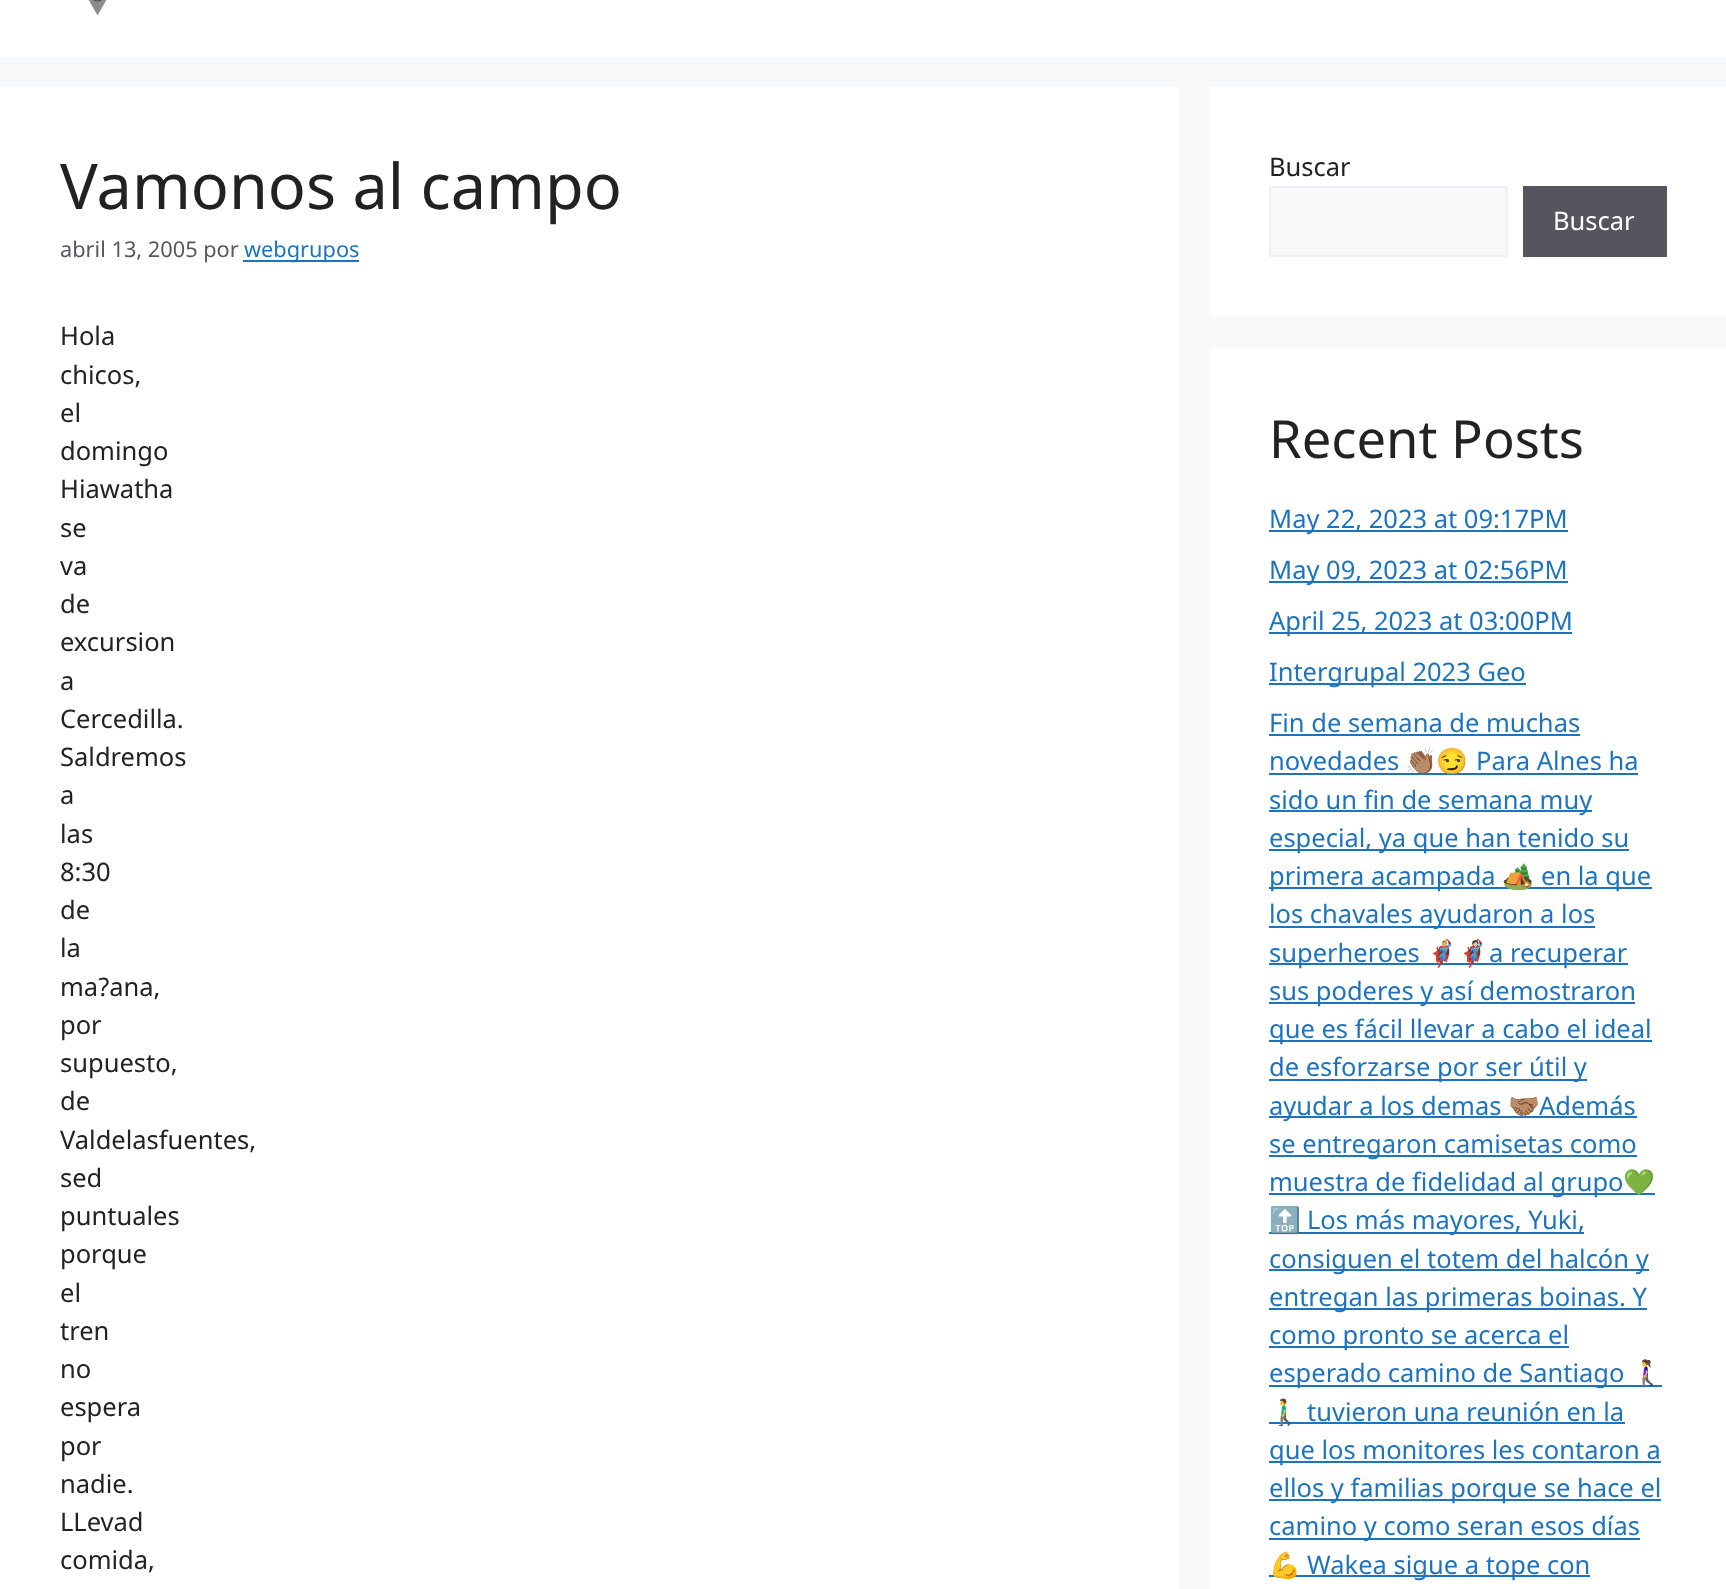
<?xml version="1.0" encoding="UTF-8"?>
<svg xmlns="http://www.w3.org/2000/svg" width="1726" height="1589">
    <rect width="100%" height="100%" fill="#F7F8F9"/>
    <rect x="0" y="0" width="1726" height="57" fill="#FFFFFF"/>
    <image x="88" y="0" width="19" height="16" href="img_01.png"/>
    <rect x="0" y="87" width="1179" height="1502" fill="#FFFFFF"/>
    <text x="60" y="209" font-family="Noto Sans" font-size="63" fill="#222222">Vamonos al campo</text>
    <text x="60" y="257" font-family="Noto Sans" font-size="21.75" fill="#575760">abril 13, 2005 por</text>
    <rect x="243" y="260" width="116" height="2" fill="#1E73BE"/>
    <text x="244" y="257" font-family="Noto Sans" font-size="21.75" fill="#1E73BE">webgrupos</text>
    <text font-family="Noto Sans" font-size="25.5" fill="#222222">
        <tspan x="60" y="345">Hola</tspan>
        <tspan x="60" y="384">chicos,</tspan>
        <tspan x="60" y="422">el</tspan>
        <tspan x="60" y="460">domingo</tspan>
        <tspan x="60" y="498">Hiawatha</tspan>
        <tspan x="60" y="537">se</tspan>
        <tspan x="60" y="575">va</tspan>
        <tspan x="60" y="613">de</tspan>
        <tspan x="60" y="651">excursion</tspan>
        <tspan x="60" y="690">a</tspan>
        <tspan x="60" y="728">Cercedilla.</tspan>
        <tspan x="60" y="766">Saldremos</tspan>
        <tspan x="60" y="804">a</tspan>
        <tspan x="60" y="843">las</tspan>
        <tspan x="60" y="881">8:30</tspan>
        <tspan x="60" y="919">de</tspan>
        <tspan x="60" y="957">la</tspan>
        <tspan x="60" y="996">ma?ana,</tspan>
        <tspan x="60" y="1034">por</tspan>
        <tspan x="60" y="1072">supuesto,</tspan>
        <tspan x="60" y="1110">de</tspan>
        <tspan x="60" y="1149">Valdelasfuentes,</tspan>
        <tspan x="60" y="1187">sed</tspan>
        <tspan x="60" y="1225">puntuales</tspan>
        <tspan x="60" y="1263">porque</tspan>
        <tspan x="60" y="1302">el</tspan>
        <tspan x="60" y="1340">tren</tspan>
        <tspan x="60" y="1378">no</tspan>
        <tspan x="60" y="1416">espera</tspan>
        <tspan x="60" y="1455">por</tspan>
        <tspan x="60" y="1493">nadie.</tspan>
        <tspan x="60" y="1531">LLevad</tspan>
        <tspan x="60" y="1569">comida,</tspan>
    </text>
    <rect x="1209" y="87" width="517" height="230" fill="#FFFFFF"/>
    <text x="1269" y="176" font-family="Noto Sans" font-size="25.5" fill="#222222">Buscar</text>
    <rect x="1270" y="187" width="237" height="69" fill="#F7F8F9" stroke="#F0F0F0" stroke-width="2"/>
    <rect x="1523" y="186" width="144" height="71" fill="#55555E"/>
    <text x="1553" y="230" font-family="Noto Sans" font-size="25.5" fill="#FFFFFF">Buscar</text>
    <rect x="1209" y="347" width="517" height="1242" fill="#FFFFFF"/>
    <text x="1269" y="458" font-family="Noto Sans" font-size="52.5" fill="#222222">Recent Posts</text>
    <rect x="1269" y="530" width="299" height="2" fill="#1E73BE"/>
    <text x="1269" y="528" font-family="Noto Sans" font-size="25.5" fill="#1E73BE">May 22, 2023 at 09:17PM</text>
    <rect x="1269" y="581" width="299" height="2" fill="#1E73BE"/>
    <text x="1269" y="579" font-family="Noto Sans" font-size="25.5" fill="#1E73BE">May 09, 2023 at 02:56PM</text>
    <rect x="1269" y="632" width="303" height="2" fill="#1E73BE"/>
    <text x="1269" y="630" font-family="Noto Sans" font-size="25.5" fill="#1E73BE">April 25, 2023 at 03:00PM</text>
    <rect x="1269" y="683" width="257" height="2" fill="#1E73BE"/>
    <text x="1269" y="681" font-family="Noto Sans" font-size="25.5" fill="#1E73BE">Intergrupal 2023 Geo</text>
    <text x="1269" y="732" font-family="Noto Sans" font-size="25.5" fill="#1E73BE">Fin de semana de muchas</text>
    <rect x="1269" y="734" width="311" height="2" fill="#1E73BE"/>
    <text x="1269" y="770" font-family="Noto Sans" font-size="25.5" fill="#1E73BE">novedades</text>
    <rect x="1269" y="773" width="369" height="2" fill="#1E73BE"/>
    <text x="1405" y="770" font-family="Noto Color Emoji" font-size="25.5" fill="#1E73BE">👏🏽😏</text>
    <text x="1476" y="770" font-family="Noto Sans" font-size="25.5" fill="#1E73BE">Para Alnes ha</text>
    <rect x="1269" y="810" width="323" height="2" fill="#1E73BE"/>
    <text x="1269" y="809" font-family="Noto Sans" font-size="25.5" fill="#1E73BE">sido un fin de semana muy</text>
    <rect x="1269" y="849" width="360" height="2" fill="#1E73BE"/>
    <text x="1269" y="847" font-family="Noto Sans" font-size="25.5" fill="#1E73BE">especial, ya que han tenido su</text>
    <rect x="1269" y="887" width="383" height="2" fill="#1E73BE"/>
    <text x="1269" y="885" font-family="Noto Sans" font-size="25.5" fill="#1E73BE">primera acampada</text>
    <text x="1502" y="885" font-family="Noto Color Emoji" font-size="25.5" fill="#1E73BE">🏕</text>
    <text x="1541" y="885" font-family="Noto Sans" font-size="25.5" fill="#1E73BE">en la que</text>
    <rect x="1269" y="926" width="326" height="2" fill="#1E73BE"/>
    <text x="1269" y="923" font-family="Noto Sans" font-size="25.5" fill="#1E73BE">los chavales ayudaron a los</text>
    <rect x="1269" y="963" width="359" height="2" fill="#1E73BE"/>
    <text x="1269" y="962" font-family="Noto Sans" font-size="25.5" fill="#1E73BE">superheroes</text>
    <text x="1426" y="962" font-family="Noto Color Emoji" font-size="25.5" fill="#1E73BE">🦸🏼‍♂️🦸🏻</text>
    <text x="1489" y="962" font-family="Noto Sans" font-size="25.5" fill="#1E73BE">a recuperar</text>
    <rect x="1269" y="1002" width="366" height="2" fill="#1E73BE"/>
    <text x="1269" y="1000" font-family="Noto Sans" font-size="25.5" fill="#1E73BE">sus poderes y así demostraron</text>
    <rect x="1269" y="1040" width="383" height="2" fill="#1E73BE"/>
    <text x="1269" y="1038" font-family="Noto Sans" font-size="25.5" fill="#1E73BE">que es fácil llevar a cabo el ideal</text>
    <rect x="1269" y="1079" width="318" height="2" fill="#1E73BE"/>
    <text x="1269" y="1076" font-family="Noto Sans" font-size="25.5" fill="#1E73BE">de esforzarse por ser útil y</text>
    <rect x="1269" y="1116" width="368" height="2" fill="#1E73BE"/>
    <text x="1269" y="1115" font-family="Noto Sans" font-size="25.5" fill="#1E73BE">ayudar a los demas</text>
    <text x="1508" y="1115" font-family="Noto Color Emoji" font-size="25.5" fill="#1E73BE">🤝🏽</text>
    <text x="1539" y="1115" font-family="Noto Sans" font-size="25.5" fill="#1E73BE">Además</text>
    <rect x="1269" y="1155" width="368" height="2" fill="#1E73BE"/>
    <text x="1269" y="1153" font-family="Noto Sans" font-size="25.5" fill="#1E73BE">se entregaron camisetas como</text>
    <rect x="1269" y="1193" width="386" height="2" fill="#1E73BE"/>
    <text x="1269" y="1191" font-family="Noto Sans" font-size="25.5" fill="#1E73BE">muestra de fidelidad al grupo</text>
    <text x="1623" y="1191" font-family="Noto Color Emoji" font-size="25.5" fill="#1E73BE">💚</text>
    <rect x="1269" y="1232" width="315" height="2" fill="#1E73BE"/>
    <text x="1269" y="1229" font-family="Noto Color Emoji" font-size="25.5" fill="#1E73BE">🔝</text>
    <text x="1307" y="1229" font-family="Noto Sans" font-size="25.5" fill="#1E73BE">Los más mayores, Yuki,</text>
    <rect x="1269" y="1269" width="380" height="2" fill="#1E73BE"/>
    <text x="1269" y="1268" font-family="Noto Sans" font-size="25.5" fill="#1E73BE">consiguen el totem del halcón y</text>
    <rect x="1269" y="1308" width="378" height="2" fill="#1E73BE"/>
    <text x="1269" y="1306" font-family="Noto Sans" font-size="25.5" fill="#1E73BE">entregan las primeras boinas. Y</text>
    <rect x="1269" y="1346" width="300" height="2" fill="#1E73BE"/>
    <text x="1269" y="1344" font-family="Noto Sans" font-size="25.5" fill="#1E73BE">como pronto se acerca el</text>
    <rect x="1269" y="1385" width="393" height="2" fill="#1E73BE"/>
    <text x="1269" y="1382" font-family="Noto Sans" font-size="25.5" fill="#1E73BE">esperado camino de Santiago</text>
    <text x="1631" y="1382" font-family="Noto Color Emoji" font-size="25.5" fill="#1E73BE">🚶‍♀️</text>
    <rect x="1269" y="1422" width="356" height="2" fill="#1E73BE"/>
    <text x="1269" y="1421" font-family="Noto Color Emoji" font-size="25.5" fill="#1E73BE">🚶‍♂️</text>
    <text x="1307" y="1421" font-family="Noto Sans" font-size="25.5" fill="#1E73BE">tuvieron una reunión en la</text>
    <rect x="1269" y="1461" width="392" height="2" fill="#1E73BE"/>
    <text x="1269" y="1459" font-family="Noto Sans" font-size="25.5" fill="#1E73BE">que los monitores les contaron a</text>
    <rect x="1269" y="1499" width="392" height="2" fill="#1E73BE"/>
    <text x="1269" y="1497" font-family="Noto Sans" font-size="25.5" fill="#1E73BE">ellos y familias porque se hace el</text>
    <rect x="1269" y="1538" width="371" height="2" fill="#1E73BE"/>
    <text x="1269" y="1535" font-family="Noto Sans" font-size="25.5" fill="#1E73BE">camino y como seran esos días</text>
    <rect x="1269" y="1575" width="321" height="2" fill="#1E73BE"/>
    <text x="1269" y="1574" font-family="Noto Color Emoji" font-size="25.5" fill="#1E73BE">💪</text>
    <text x="1307" y="1574" font-family="Noto Sans" font-size="25.5" fill="#1E73BE">Wakea sigue a tope con</text>
</svg>
